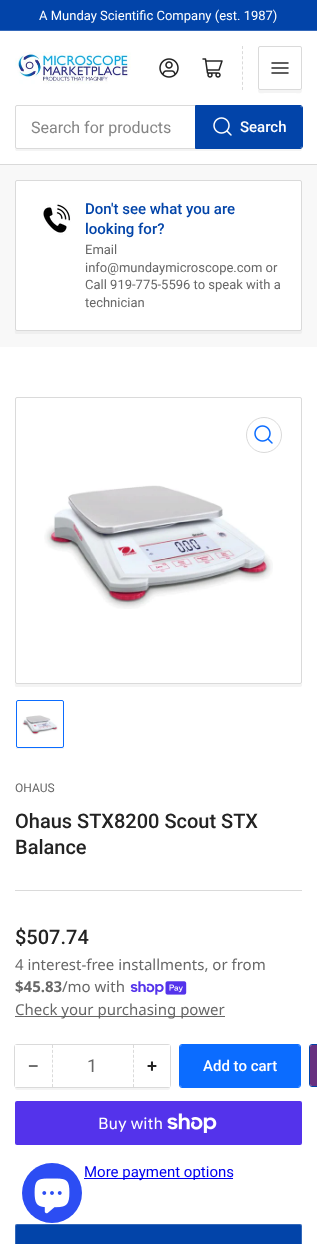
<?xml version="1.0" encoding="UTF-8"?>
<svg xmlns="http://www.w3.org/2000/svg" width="317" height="1244">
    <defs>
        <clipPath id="clip1"><rect x="15" y="699" width="287" height="50"/></clipPath>
    </defs>
    <rect width="100%" height="100%" fill="#FFFFFF"/>
    <rect x="0" y="0" width="317" height="30" fill="#0244A9"/>
    <rect x="0" y="30" width="317" height="1" fill="#3569BA"/>
    <text x="39" y="20" font-family="Roboto" font-size="13" fill="#FFFFFF">A Munday Scientific Company (est. 1987)</text>
    <rect x="0" y="164" width="317" height="1" fill="#DADADA"/>
    <image x="15" y="52" width="116" height="32" href="img_01.png"/>
    <image x="159" y="58" width="20" height="20" href="img_02.png"/>
    <image x="202" y="58" width="21" height="20" href="img_03.png"/>
    <path d="M 242.5 46 V 90" fill="none" stroke="#DADADA" stroke-dasharray="3 2.12"/>
    <path d="M 258 88 C 258 95 259 93 267 93 H 293 C 301 93 302 95 302 88 C 302 89 301 90 300 90 H 260 C 259 90 258 89 258 88 Z" fill="#F4F4F4"/>
    <rect x="258.5" y="46.5" width="43" height="43" rx="1.5" fill="none" stroke="#DADADA"/>
    <image x="271" y="62" width="18" height="12" href="img_04.png"/>
    <path d="M 15 147 C 15 149 15 151 17 151 H 301 C 302 150 302 148 302 147 C 302 148 301 149 300 149 H 17 C 16 149 15 148 15 147 Z" fill="#F4F4F4"/>
    <rect x="15.5" y="105.5" width="286" height="43" rx="1.5" fill="none" stroke="#DADADA"/>
    <text x="31" y="133" font-family="Roboto" font-size="16" fill="#858585">Search for products</text>
    <path d="M 195.5 105.5 H 300 C 301.5 105.5 302.5 106.5 302.5 108 V 146 C 302.5 147.5 301.5 148.5 300 148.5 H 195.5 Z" fill="none" stroke="#0244A9"/>
    <path d="M 196 106 H 300 C 301 106 302 107 302 108 V 146 C 302 147 301 148 300 148 H 196 Z" fill="#0244A9"/>
    <image x="213" y="117" width="19" height="19" href="img_05.png"/>
    <text x="240" y="132" font-family="Roboto" font-size="15" font-weight="500" fill="#FFFFFF">Search</text>
    <rect x="0" y="165" width="317" height="182" fill="#F8F8F8"/>
    <path d="M 15 329 C 15 330 14 333 16 334 H 300 C 303 334 302 331 302 329 C 302 330 301 331 300 331 H 17 C 16 331 15 330 15 329 Z" fill="#EFEFEF"/>
    <rect x="15.5" y="180.5" width="286" height="150" rx="1.5" fill="#FFFFFF" stroke="#DADADA"/>
    <image x="43" y="204" width="28" height="31" href="img_06.png"/>
    <text font-family="Roboto" font-size="15" font-weight="500" fill="#0244A9">
        <tspan x="85" y="214">Don't see what you are</tspan>
        <tspan x="85" y="234">looking for?</tspan>
    </text>
    <text font-family="Roboto" font-size="13" fill="#676767">
        <tspan x="85" y="254">Email</tspan>
        <tspan x="85" y="272">info@mundaymicroscope.com or</tspan>
        <tspan x="85" y="289">Call 919-775-5596 to speak with a</tspan>
        <tspan x="85" y="307">technician</tspan>
    </text>
    <path d="M 15 682 C 15 683 14 686 16 687 H 300 C 303 687 302 684 302 682 C 302 683 301 684 300 684 H 17 C 16 684 15 683 15 682 Z" fill="#F4F4F4"/>
    <rect x="15.5" y="397.5" width="286" height="286" rx="1.5" fill="none" stroke="#DADADA"/>
    <circle cx="264" cy="435" r="17.5" fill="none" stroke="#DADADA"/>
    <image x="254" y="425" width="19" height="19" href="img_07.png"/>
    <image x="44" y="485" width="229" height="124" href="img_08.png"/>
    <g clip-path="url(#clip1)">
        <path d="M 16 746 C 16 753 17 751 25 751 H 55 C 63 751 64 753 64 746 C 64 747 63 748 62 748 H 18 C 17 748 16 747 16 746 Z" fill="#F4F4F4"/>
    </g>
    <rect x="16.5" y="700.5" width="47" height="47" rx="1.5" fill="none" stroke="#0B6CFF"/>
    <image x="22" y="715" width="36" height="20" href="img_09.png"/>
    <rect x="15" y="890" width="287" height="1" fill="#DADADA"/>
    <text x="15" y="792" font-family="Roboto" font-size="12" fill="#676767">OHAUS</text>
    <text font-family="Roboto" font-size="20" font-weight="500" fill="#232323">
        <tspan x="15" y="828">Ohaus STX8200 Scout STX</tspan>
        <tspan x="15" y="854">Balance</tspan>
    </text>
    <text x="15" y="944" font-family="Roboto" font-size="20" font-weight="500" fill="#232323">$507.74</text>
    <text x="15" y="970" font-family="Noto Sans" font-size="15" fill="#676767">4 interest-free installments, or from</text>
    <text x="15" y="992" font-family="Noto Sans" font-size="15" font-weight="700" fill="#676767">$45.83</text>
    <text x="62" y="992" font-family="Noto Sans" font-size="15" fill="#676767">/mo with</text>
    <image x="130" y="981" width="57" height="14" href="img_10.png"/>
    <rect x="15" y="1016" width="210" height="1" fill="#676767"/>
    <text x="15" y="1015" font-family="Noto Sans" font-size="15" fill="#676767">Check your purchasing power</text>
    <path d="M 15 1085 V 1088 C 15 1089 16 1090 17 1090 H 168 C 169 1090 170 1089 170 1088 V 1085 C 170 1086 169 1087 168 1087 H 17 C 16 1087 15 1086 15 1085 Z" fill="#F4F4F4"/>
    <rect x="14.5" y="1044.5" width="156" height="43" rx="2.5" fill="none" stroke="#DADADA"/>
    <rect x="15" y="1045" width="2" height="42" fill="#FFFFFF"/>
    <text x="28" y="1072" font-family="Liberation Sans" font-size="18" fill="#232323">−</text>
    <path d="M 133.5 1045 V 1087" fill="none" stroke="#DADADA" stroke-dasharray="3 1.88"/>
    <path d="M 52.5 1045 V 1087" fill="none" stroke="#DADADA" stroke-dasharray="3 1.88"/>
    <text x="87" y="1072" font-family="Roboto" font-size="18" fill="#676767">1</text>
    <rect x="168" y="1045" width="2" height="42" fill="#FFFFFF"/>
    <text x="147" y="1072" font-family="Roboto" font-size="18" font-weight="500" fill="#232323">+</text>
    <rect x="179.5" y="1044.5" width="121" height="43" rx="2.5" fill="none" stroke="#0B6CFF"/>
    <rect x="180" y="1045" width="120" height="42" rx="2" fill="#0B6CFF"/>
    <text x="203" y="1071" font-family="Roboto" font-size="15" font-weight="500" fill="#FFFFFF">Add to cart</text>
    <rect x="309.5" y="1044.5" width="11" height="42" rx="2.5" fill="none" stroke="#0244A9"/>
    <rect x="310" y="1045" width="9" height="41" rx="2" fill="#683080"/>
    <rect x="15" y="1101" width="287" height="44" rx="2" fill="#5433EB"/>
    <text x="98" y="1129" font-family="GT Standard" font-size="16" fill="#FFFFFF">Buy with</text>
    <image x="167" y="1113" width="50" height="20" href="img_11.png"/>
    <rect x="84" y="1178" width="149" height="1" fill="#0000EE"/>
    <text x="84" y="1177" font-family="Roboto" font-size="15" fill="#0000EE">More payment options</text>
    <rect x="15" y="1224" width="287" height="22" rx="2" fill="#0244A9"/>
    <rect x="15.5" y="1224.5" width="286" height="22" rx="1.5" fill="none" stroke="#FFFFFF" stroke-opacity="0.2"/>
    <circle cx="52" cy="1193" r="30" fill="#2C4DF3"/>
    <image x="34" y="1178" width="36" height="36" href="img_12.png"/>
</svg>
